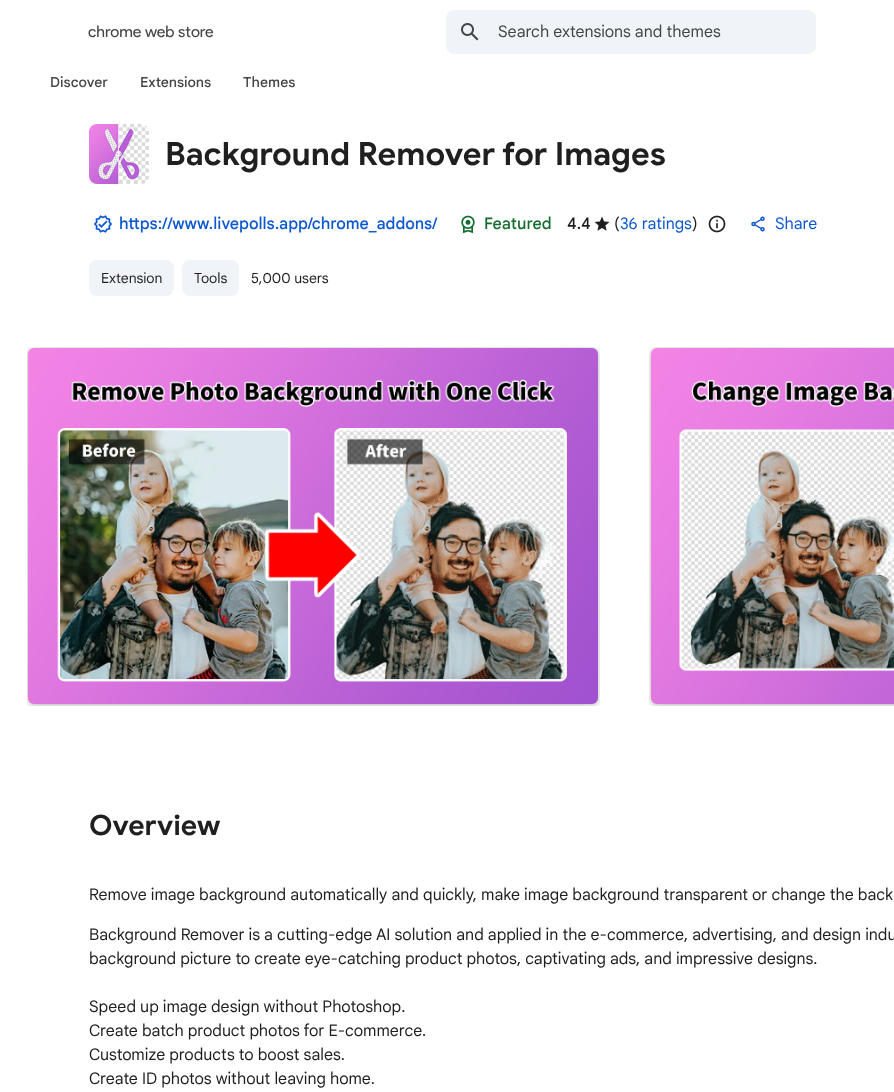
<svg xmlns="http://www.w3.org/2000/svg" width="894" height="1092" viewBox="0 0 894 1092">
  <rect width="100%" height="100%" fill="rgb(255,255,255)"/>
  <image x="61" y="21" width="6" height="1" href="pic1.png"/>
  <text x="88" y="37" font-family="Product Sans" font-size="16" fill="rgb(68,71,70)">chrome web store</text>
  <rect x="446" y="10" width="370" height="44" rx="8" fill="rgb(240,244,249)"/>
  <image x="461" y="23" width="18" height="18" href="pic2.png"/>
  <text x="498" y="37" font-family="Google Sans" font-size="16" fill="rgb(68,71,70)">Search extensions and themes</text>
  <g font-family="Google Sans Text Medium" font-size="14" font-weight="500" fill="rgb(68,71,70)">
    <text x="50" y="87">Discover</text>
    <text x="140" y="87">Extensions</text>
    <text x="243" y="87">Themes</text>
  </g>
  <image x="89" y="124" width="60" height="60" href="pic3.png"/>
  <text x="165" y="165" font-family="Google Sans" font-size="32" font-weight="bold" fill="rgb(31,31,31)">Background Remover for Images</text>
  <image x="94" y="215" width="18" height="18" href="pic4.png"/>
  <text x="119" y="229" font-family="Google Sans" font-size="16" font-weight="500" fill="rgb(11,87,208)">https://www.livepolls.app/chrome_addons/</text>
  <image x="461" y="215" width="14" height="19" href="pic5.png"/>
  <text x="484" y="229" font-family="Google Sans" font-size="16" font-weight="500" fill="rgb(20,108,46)">Featured</text>
  <text x="567" y="229" font-family="Google Sans" font-size="16" font-weight="500" fill="rgb(31,31,31)">4.4</text>
  <image x="594" y="216" width="16" height="15" href="pic6.png"/>
  <text x="614" y="229" font-family="Google Sans" font-size="16" fill="rgb(31,31,31)">(</text>
  <text x="620" y="229" font-family="Google Sans" font-size="16" fill="rgb(11,87,208)">36 ratings</text>
  <text x="692" y="229" font-family="Google Sans" font-size="16" fill="rgb(31,31,31)">)</text>
  <image x="708" y="215" width="18" height="18" href="pic7.png"/>
  <image x="751" y="216" width="14" height="16" href="pic8.png"/>
  <text x="775" y="229" font-family="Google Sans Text" font-size="16" fill="rgb(11,87,208)">Share</text>
  <rect x="89" y="260" width="85" height="36" rx="8" fill="rgb(240,244,249)"/>
  <text x="101" y="283" font-family="Google Sans" font-size="14" fill="rgb(31,31,31)">Extension</text>
  <rect x="182" y="260" width="57" height="36" rx="8" fill="rgb(240,244,249)"/>
  <g font-family="Google Sans" font-size="14" fill="rgb(31,31,31)">
    <text x="194" y="283">Tools</text>
    <text x="251" y="283">5,000 users</text>
  </g>
  <image x="27" y="347" width="573" height="359" href="pic9.png"/>
  <image x="649" y="347" width="245" height="359" href="pic10.png"/>
  <text x="89" y="835" font-family="Google Sans" font-size="28" font-weight="bold" fill="rgb(31,31,31)">Overview</text>
  <g font-family="Google Sans" font-size="16" fill="rgb(31,31,31)">
    <text x="89" y="900">Remove image background automatically and quickly, make image background transparent or change the back</text>
    <text>
      <tspan x="89" y="940">Background Remover is a cutting-edge AI solution and applied in the e-commerce, advertising, and design indu</tspan>
      <tspan x="89" y="964">background picture to create eye-catching product photos, captivating ads, and impressive designs.</tspan>
    </text>
    <text>
      <tspan x="89" y="1012">Speed up image design without Photoshop.</tspan>
      <tspan x="89" y="1036">Create batch product photos for E-commerce.</tspan>
      <tspan x="89" y="1060">Customize products to boost sales.</tspan>
      <tspan x="89" y="1084">Create ID photos without leaving home.</tspan>
    </text>
  </g>
</svg>
